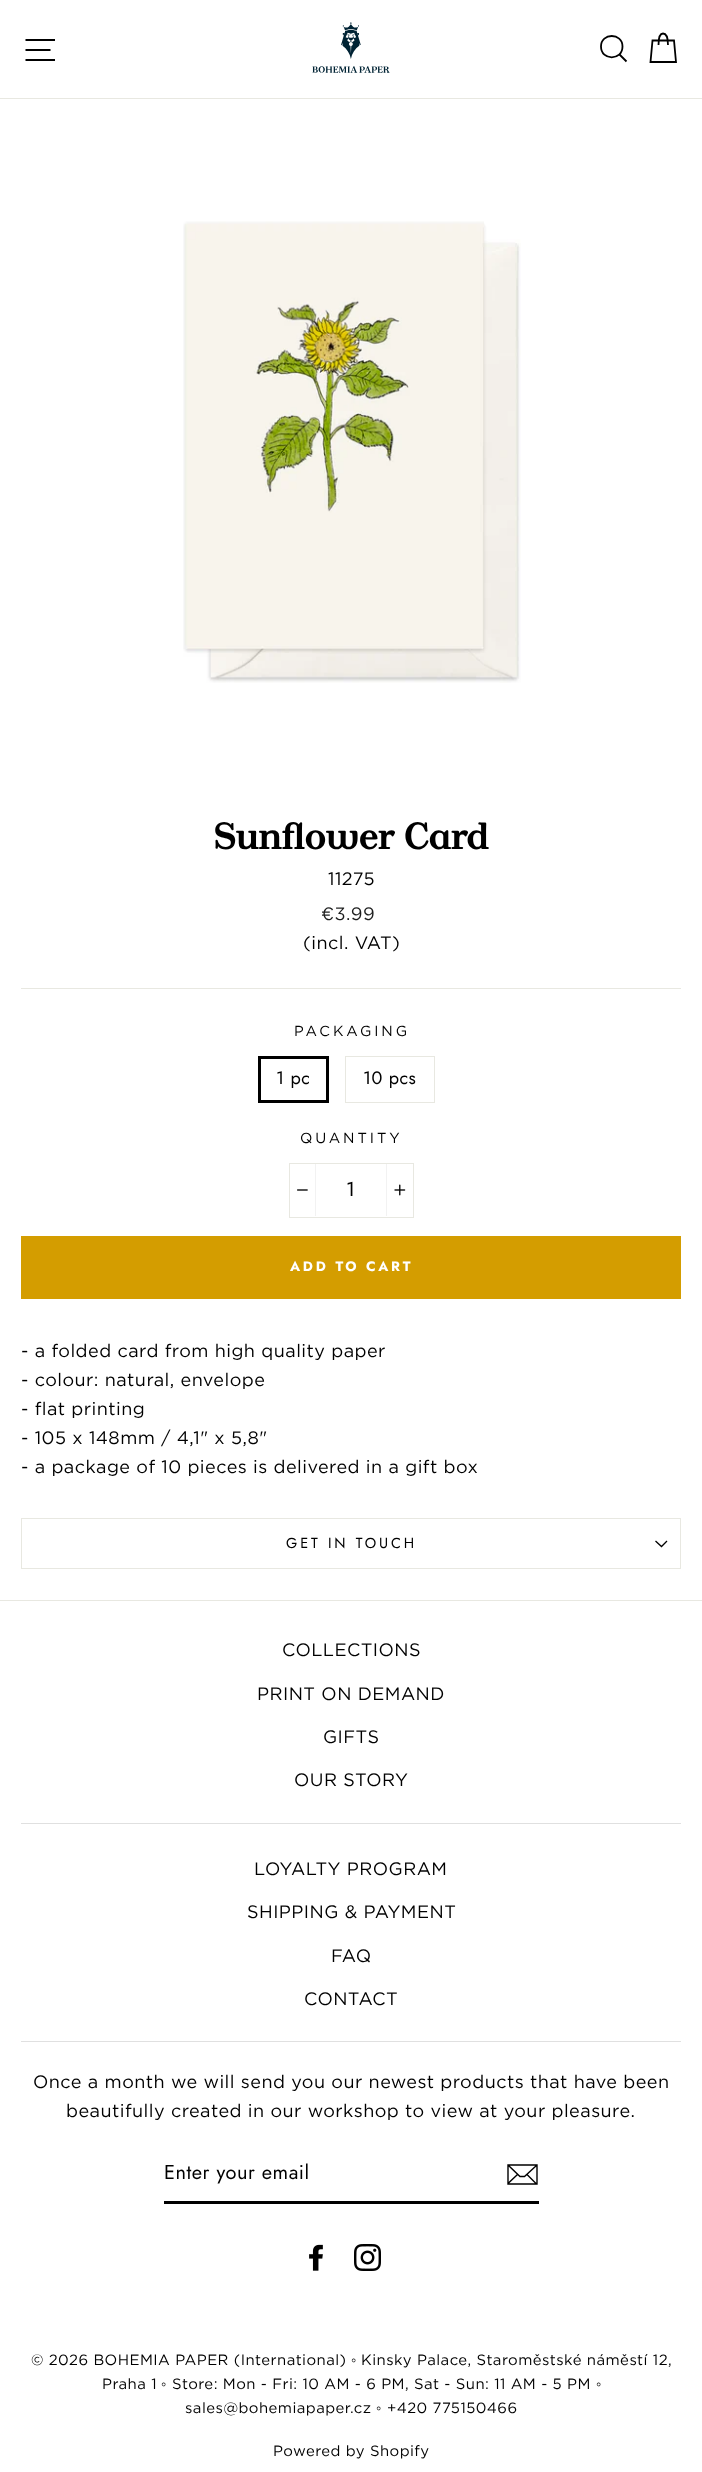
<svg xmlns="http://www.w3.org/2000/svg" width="702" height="2472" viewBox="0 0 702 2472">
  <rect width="100%" height="100%" fill="rgb(255,255,255)"/>
  <rect x="0" y="98" width="702" height="1" fill="rgb(232,232,225)"/>
  <path d="M25.5 40H55M25.5 50H50.5M25.5 60H55" fill="none" stroke="rgb(0,0,0)" stroke-width="1.8"/>
  <image x="312" y="22" width="78" height="51" href="pic1.png"/>
  <path d="M622.5 46.5C622.5 61 601 61 601 46.5C601 32.5 622.5 32.5 622.5 46.5ZM626.5 61.5L619.5 54.5" fill="none" stroke="rgb(0,0,0)" stroke-width="1.8"/>
  <path d="M658.5 45C658.5 36 660.5 33.5 663 33.5C665.5 33.5 668 36 668 45M652.5 40.5H674L676 62H650.5Z" fill="none" stroke="rgb(0,0,0)" stroke-width="1.8"/>
  <image x="183" y="221" width="338" height="462" href="pic2.png"/>
  <text x="213" y="849" word-spacing="1" font-family="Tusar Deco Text" font-size="36.5" font-weight="bold" fill="rgb(0,0,0)">Sunflower Card</text>
  <text x="328" y="885" font-family="Gotham" font-size="18.05" letter-spacing="0.45" fill="rgb(0,0,0)">11275</text>
  <text x="321" y="920" font-family="Gotham" font-size="18.05" letter-spacing="0.45" fill="rgb(28,29,29)">€3.99</text>
  <text x="303" y="949" font-family="Gotham" font-size="18.05" letter-spacing="0.45" fill="rgb(0,0,0)">(incl. VAT)</text>
  <rect x="21" y="988" width="660" height="1" fill="rgb(232,232,225)"/>
  <text x="294" y="1036" font-family="Gotham" font-size="14.5" letter-spacing="2.9" fill="rgb(0,0,0)">PACKAGING</text>
  <rect x="259.5" y="1057.5" width="68" height="44" fill="none" stroke="rgb(0,0,0)" stroke-width="3"/>
  <text x="276" y="1084" font-family="Jost" font-size="18.05" letter-spacing="0.45" fill="rgb(0,0,0)">1 pc</text>
  <rect x="345.5" y="1056.5" width="89" height="46" fill="none" stroke="rgb(232,232,225)"/>
  <text x="363" y="1084" font-family="Jost" font-size="18.05" letter-spacing="0.45" fill="rgb(0,0,0)">10 pcs</text>
  <text x="300" y="1143" font-family="Gotham" font-size="14.5" letter-spacing="2.9" fill="rgb(0,0,0)">QUANTITY</text>
  <rect x="289.5" y="1163.5" width="124" height="54" fill="none" stroke="rgb(232,232,225)"/>
  <rect x="315" y="1164" width="1" height="52" fill="rgb(242,242,242)"/>
  <image x="297" y="1189" width="11" height="2" href="pic3.png"/>
  <text x="346" y="1196" font-family="Jost" font-size="20" letter-spacing="0.5" fill="rgb(0,0,0)">1</text>
  <rect x="386" y="1164" width="1" height="52" fill="rgb(242,242,242)"/>
  <image x="394" y="1184" width="12" height="12" href="pic4.png"/>
  <rect x="21" y="1236" width="660" height="63" fill="rgb(212,157,0)"/>
  <text x="290" y="1271" font-family="Jost" font-size="13.75" font-weight="bold" letter-spacing="2.75" fill="rgb(255,255,255)">ADD TO CART</text>
  <g font-family="Gotham" font-size="18.05" letter-spacing="0.45" fill="rgb(0,0,0)">
    <text>
      <tspan x="21" y="1357">- a folded card from high quality paper</tspan>
      <tspan x="21" y="1386">- colour: natural, envelope</tspan>
      <tspan x="21" y="1415">- flat printing</tspan>
      <tspan x="21" y="1444">- 105 x 148mm / 4,1" x 5,8"</tspan>
      <tspan x="21" y="1473">- a package of 10 pieces is delivered in a gift box</tspan>
    </text>
  </g>
  <rect x="21" y="1568" width="660" height="1" fill="rgb(232,232,225)"/>
  <rect x="21" y="1518" width="660" height="1" fill="rgb(232,232,225)"/>
  <rect x="680" y="1518" width="1" height="50" fill="rgb(232,232,225)"/>
  <rect x="21" y="1518" width="1" height="50" fill="rgb(232,232,225)"/>
  <text x="286" y="1548" font-family="Jost" font-size="14.5" letter-spacing="2.9" fill="rgb(0,0,0)">GET IN TOUCH</text>
  <path d="M655.5 1541L661.5 1546.5L667 1541" fill="none" stroke="rgb(0,0,0)" stroke-width="1.3"/>
  <rect x="0" y="1600" width="702" height="1" fill="rgb(232,232,225)"/>
  <g font-family="Gotham" font-size="18.05" letter-spacing="0.45" fill="rgb(0,0,0)">
    <text x="282" y="1656">COLLECTIONS</text>
    <text x="257" y="1700">PRINT ON DEMAND</text>
    <text x="323" y="1743">GIFTS</text>
    <text x="294" y="1786">OUR STORY</text>
  </g>
  <rect x="21" y="1823" width="660" height="1" fill="rgb(224,224,224)"/>
  <g font-family="Gotham" font-size="18.05" letter-spacing="0.45" fill="rgb(0,0,0)">
    <text x="254" y="1875">LOYALTY PROGRAM</text>
    <text x="247" y="1918">SHIPPING &amp; PAYMENT</text>
    <text x="331" y="1962">FAQ</text>
    <text x="304" y="2005">CONTACT</text>
  </g>
  <rect x="21" y="2041" width="660" height="1" fill="rgb(224,224,224)"/>
  <g font-family="Gotham" font-size="18.05" letter-spacing="0.45" fill="rgb(0,0,0)">
    <text x="33" y="2088">Once a month we will send you our newest products that have been</text>
    <text x="66" y="2117">beautifully created in our workshop to view at your pleasure.</text>
  </g>
  <rect x="164" y="2201" width="375" height="3" fill="rgb(0,0,0)"/>
  <text x="164" y="2179" font-family="Jost" font-size="20" letter-spacing="0.5" fill="rgb(0,0,0)">Enter your email</text>
  <path d="M537 2184H508V2165H537ZM508 2165L520 2176.5H524.5L537 2165M517.5 2174.5L508 2183.5M536.5 2184L527 2174.5" fill="none" stroke="rgb(0,0,0)" stroke-width="1.4"/>
  <image x="309" y="2244" width="14" height="27" href="pic5.png"/>
  <image x="354" y="2244" width="27" height="27" href="pic6.png"/>
  <text x="31" y="2365" font-family="Gotham" font-size="14.9" letter-spacing="0.45" fill="rgb(0,0,0)">© 2026 BOHEMIA PAPER (International)</text>
  <text x="351" y="2365" font-family="Liberation Sans" font-size="14.9" letter-spacing="0.45" fill="rgb(0,0,0)">◦</text>
  <g font-family="Gotham" font-size="14.9" letter-spacing="0.45" fill="rgb(0,0,0)">
    <text x="361" y="2365">Kinsky Palace, Staroměstské náměstí 12,</text>
    <text x="102" y="2389">Praha 1</text>
  </g>
  <text x="161" y="2389" font-family="Liberation Sans" font-size="14.9" letter-spacing="0.45" fill="rgb(0,0,0)">◦</text>
  <text x="172" y="2389" font-family="Gotham" font-size="14.9" letter-spacing="0.45" fill="rgb(0,0,0)">Store: Mon - Fri: 10 AM - 6 PM, Sat - Sun: 11 AM - 5 PM</text>
  <text x="596" y="2389" font-family="Liberation Sans" font-size="14.9" letter-spacing="0.45" fill="rgb(0,0,0)">◦</text>
  <text x="185" y="2413" font-family="Gotham" font-size="14.9" letter-spacing="0.45" fill="rgb(0,0,0)">sales@bohemiapaper.cz</text>
  <text x="376" y="2413" font-family="Liberation Sans" font-size="14.9" letter-spacing="0.45" fill="rgb(0,0,0)">◦</text>
  <g font-family="Gotham" font-size="14.9" letter-spacing="0.45" fill="rgb(0,0,0)">
    <text x="387" y="2413">+420 775150466</text>
    <text x="273" y="2456">Powered by Shopify</text>
  </g>
</svg>
